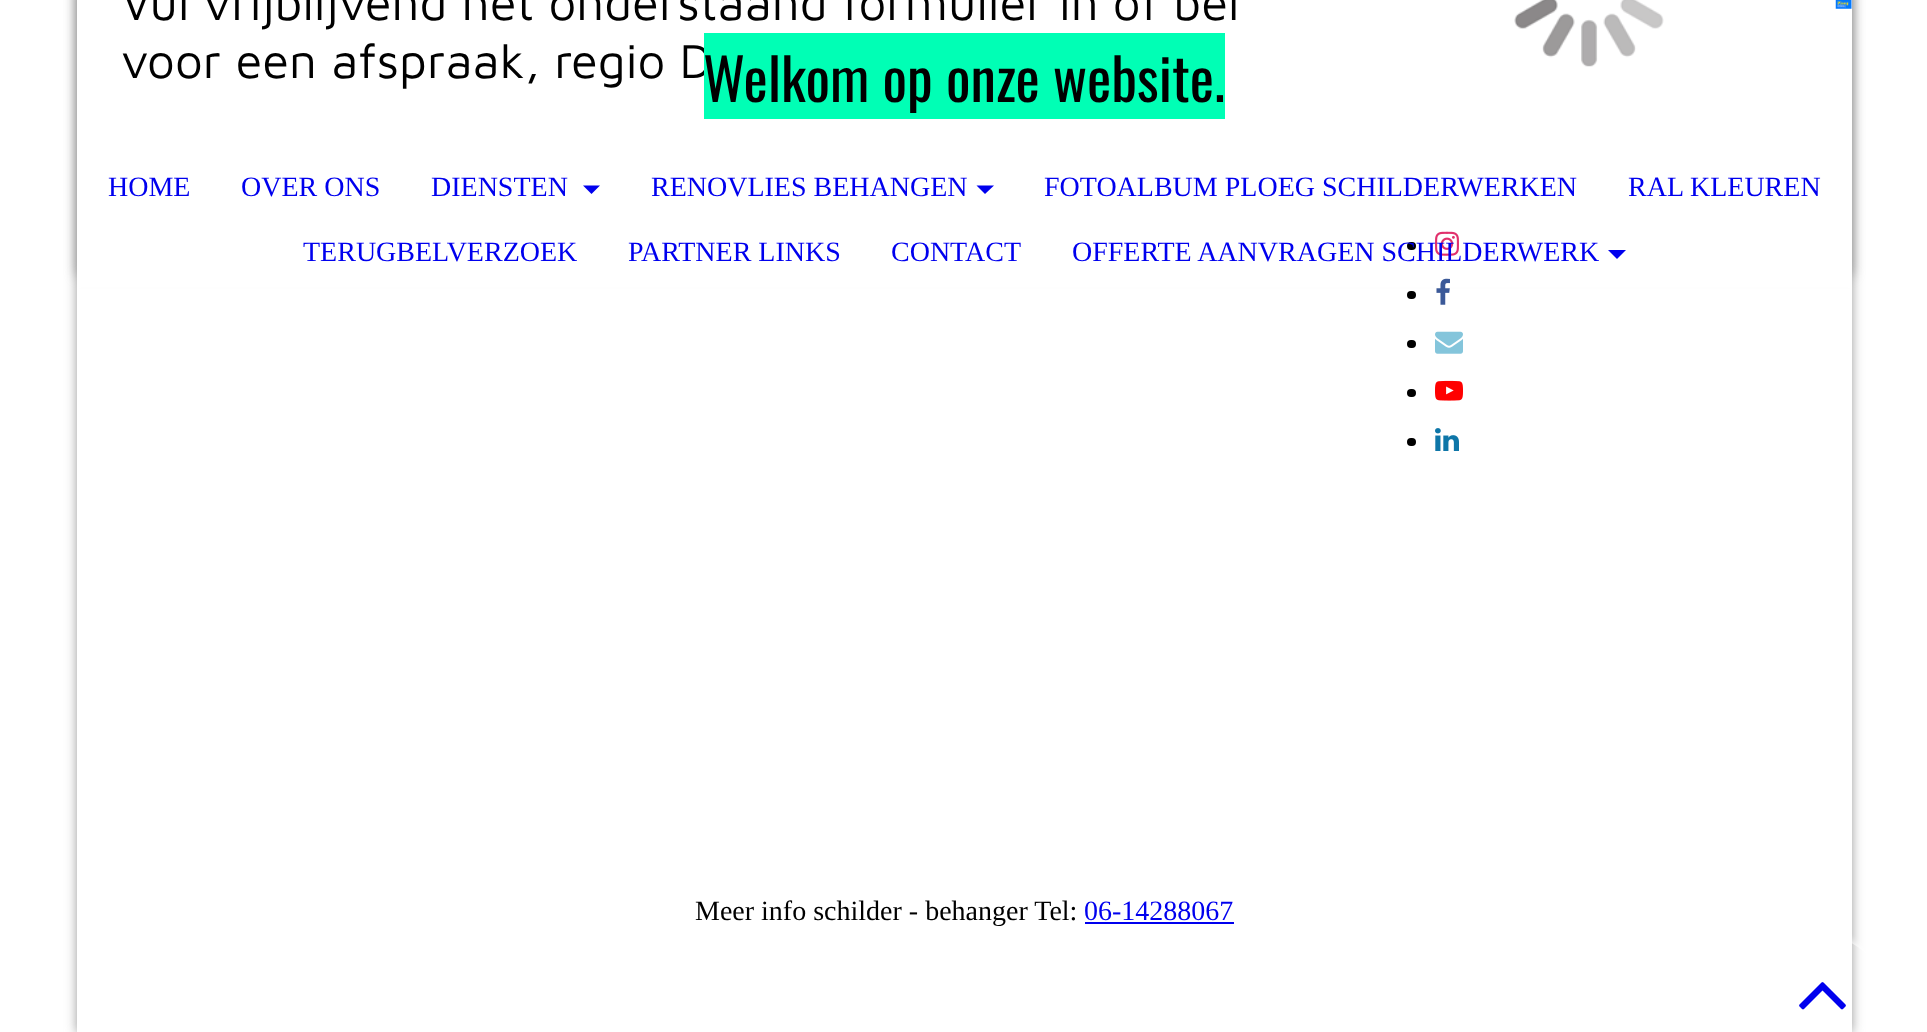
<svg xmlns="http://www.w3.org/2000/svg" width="1927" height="1032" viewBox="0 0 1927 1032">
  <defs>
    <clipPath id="clip1"><path d="M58 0H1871V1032H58ZM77-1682H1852V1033H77Z" clip-rule="evenodd"/></clipPath>
    <clipPath id="clip2"><path d="M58 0H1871V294H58ZM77 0H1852V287H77Z" clip-rule="evenodd"/></clipPath>
    <clipPath id="clip3"><path d="M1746 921H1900V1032H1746ZM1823 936C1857 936 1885 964 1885 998V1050H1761V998C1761 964 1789 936 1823 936Z" clip-rule="evenodd"/></clipPath>
  </defs>
  <rect width="100%" height="100%" fill="rgb(255,255,255)"/>
  <g clip-path="url(#clip1)">
    <rect x="77" y="-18" width="1775" height="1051" fill="rgb(153,153,153)" filter="blur(6px)"/>
  </g>
  <g font-family="Maven Pro" font-size="49" fill="rgb(0,0,0)">
    <text>
      <tspan x="121" y="20">Vul vrijblijvend het onderstaand formulier in of bel</tspan>
      <tspan x="121" y="78">voor een afspraak, regio D</tspan>
    </text>
  </g>
  <image x="1514" y="0" width="150" height="67" href="pic1.png"/>
  <rect x="1407" y="242" width="9" height="8" rx="4" fill="rgb(0,0,0)"/>
  <image x="1435" y="231" width="24" height="25" href="pic2.png"/>
  <rect x="1407" y="291" width="9" height="8" rx="4" fill="rgb(0,0,0)"/>
  <image x="1436" y="278" width="14" height="27" href="pic3.png"/>
  <rect x="1407" y="340" width="9" height="8" rx="4" fill="rgb(0,0,0)"/>
  <image x="1435" y="331" width="28" height="23" href="pic4.png"/>
  <rect x="1407" y="389" width="9" height="8" rx="4" fill="rgb(0,0,0)"/>
  <image x="1435" y="380" width="28" height="21" href="pic5.png"/>
  <rect x="1407" y="438" width="9" height="8" rx="4" fill="rgb(0,0,0)"/>
  <image x="1435" y="428" width="24" height="23" href="pic6.png"/>
  <g clip-path="url(#clip2)">
    <rect x="77" y="-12" width="1775" height="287" fill="rgb(153,153,153)" filter="blur(6px)"/>
  </g>
  <image x="1835" y="0" width="17" height="9" href="pic7.png"/>
  <rect x="704" y="33" width="521" height="86" fill="rgb(0,255,181)"/>
  <text x="703" y="102" font-family="Oswald" font-size="57.75" fill="rgb(0,0,0)">Welkom op onze website.</text>
  <g font-family="Liberation Serif" font-size="28" fill="rgb(0,0,238)">
    <text x="108" y="196">HOME</text>
    <text x="241" y="196">OVER ONS</text>
    <text x="431" y="196">DIENSTEN</text>
  </g>
  <path d="M583 185.5H600L591.5 194Z" fill="rgb(0,0,238)"/>
  <text x="651" y="196" font-family="Liberation Serif" font-size="28" fill="rgb(0,0,238)">RENOVLIES BEHANGEN</text>
  <path d="M976.5 185.5H994L985 194Z" fill="rgb(0,0,238)"/>
  <g font-family="Liberation Serif" font-size="28" fill="rgb(0,0,238)">
    <text x="1044" y="196">FOTOALBUM PLOEG SCHILDERWERKEN</text>
    <text x="1628" y="196">RAL KLEUREN</text>
    <text x="303" y="261">TERUGBELVERZOEK</text>
    <text x="628" y="261">PARTNER LINKS</text>
    <text x="891" y="261">CONTACT</text>
    <text x="1072" y="261">OFFERTE AANVRAGEN SCHILDERWERK</text>
  </g>
  <path d="M1608 250H1626L1617 259Z" fill="rgb(0,0,238)"/>
  <text x="695" y="920" font-family="Liberation Serif" font-size="28" fill="rgb(0,0,0)">Meer info schilder - behanger Tel:</text>
  <text x="1084" y="920" font-family="Liberation Serif" font-size="28" fill="rgb(0,0,238)">06-14288067</text>
  <rect x="1085" y="922" width="149" height="2" fill="rgb(0,0,238)"/>
  <g clip-path="url(#clip3)">
    <rect x="1761" y="936" width="124" height="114" rx="62" fill="rgb(255,255,255)" filter="blur(4.5px)"/>
  </g>
  <image x="1799" y="982" width="47" height="28" href="pic8.png"/>
</svg>
